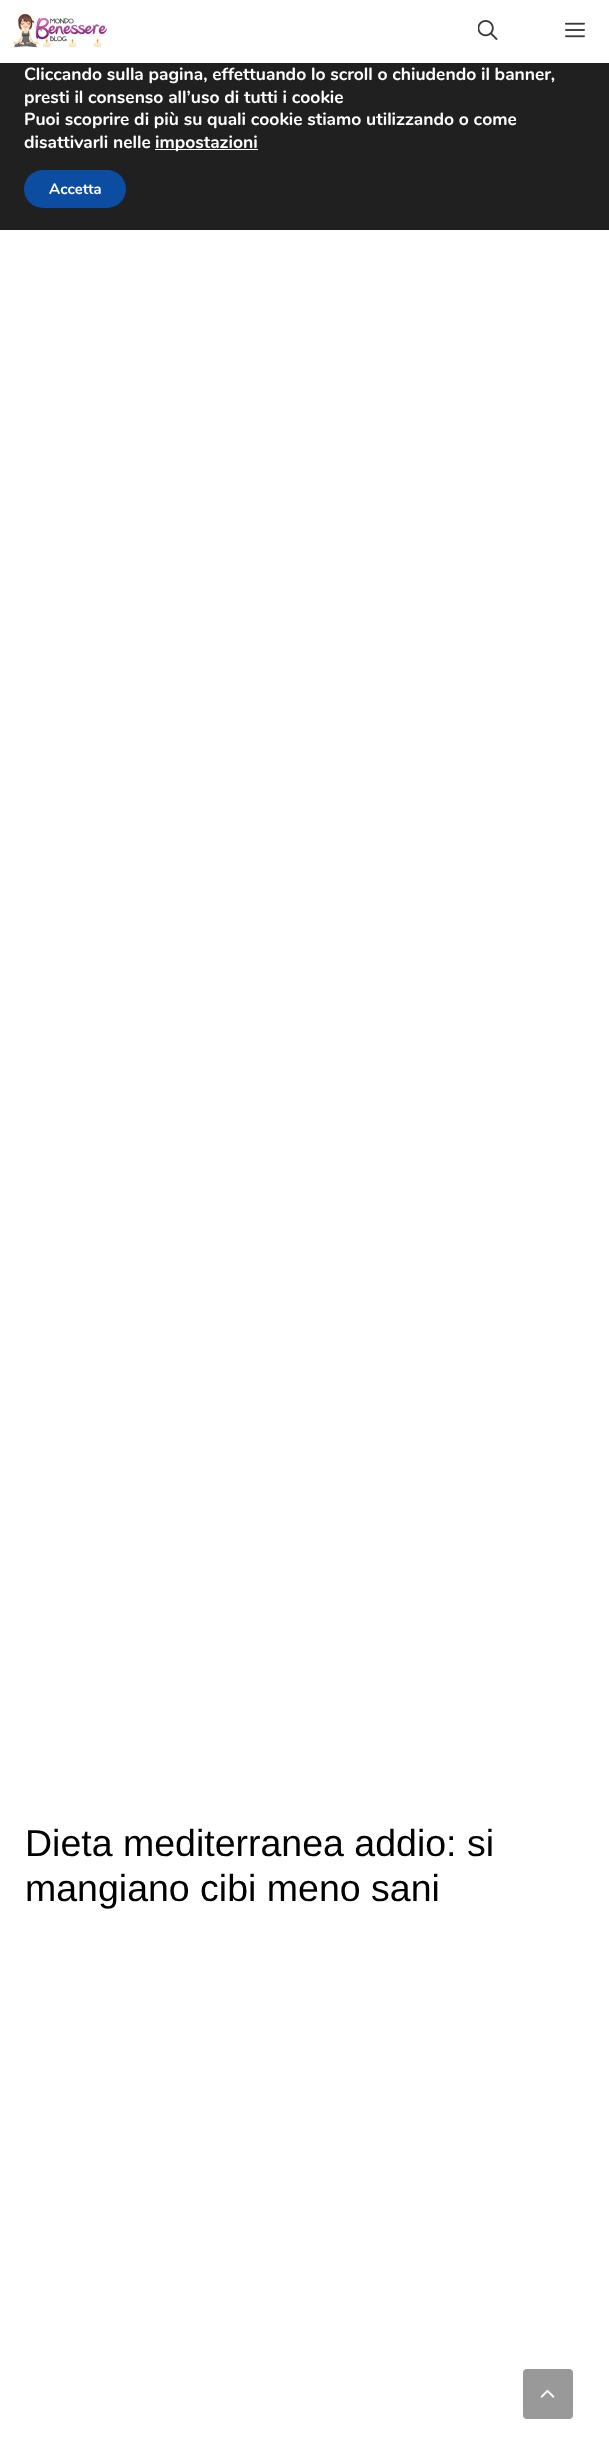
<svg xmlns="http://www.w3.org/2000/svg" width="609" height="2456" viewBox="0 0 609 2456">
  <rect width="100%" height="100%" fill="rgb(255,255,255)"/>
  <rect x="0" y="63" width="609" height="167" fill="rgb(32,32,32)"/>
  <rect x="3" y="5" width="605" height="58" fill="rgba(0,0,0,0.2)" filter="blur(1px)"/>
  <rect x="1" y="3" width="608" height="60" fill="rgb(255,255,255)"/>
  <image x="12" y="13" width="96" height="36" href="pic1.png"/>
  <image x="478" y="20" width="20" height="20" href="pic2.png"/>
  <image x="565" y="22" width="20" height="16" href="pic3.png"/>
  <g font-family="Nunito" font-size="17.5" font-weight="bold" fill="rgb(255,255,255)">
    <text>
      <tspan x="24" y="80">Cliccando sulla pagina, effettuando lo scroll o chiudendo il banner,</tspan>
      <tspan x="24" y="103">presti il consenso all’uso di tutti i cookie</tspan>
      <tspan x="24" y="125">Puoi scoprire di più su quali cookie stiamo utilizzando o come</tspan>
      <tspan x="24" y="148">disattivarli nelle</tspan>
    </text>
  </g>
  <rect x="155" y="149" width="103" height="1" fill="rgb(255,255,255)"/>
  <text x="155" y="148" font-family="Nunito" font-size="17.5" font-weight="bold" fill="rgb(255,255,255)">impostazioni</text>
  <rect x="24" y="170" width="102" height="38" rx="19" fill="rgb(12,77,162)"/>
  <text x="49" y="194" font-family="Nunito" font-size="15" font-weight="bold" fill="rgb(255,255,255)">Accetta</text>
  <g font-family="Liberation Sans" font-size="37.5" fill="rgb(0,0,0)">
    <text>
      <tspan x="25" y="1856">Dieta mediterranea addio: si</tspan>
      <tspan x="25" y="1901">mangiano cibi meno sani</tspan>
    </text>
  </g>
  <rect x="523" y="2369" width="50" height="50" rx="4" fill="rgb(153,153,153)"/>
  <image x="540" y="2389" width="15" height="9" href="pic4.png"/>
</svg>
